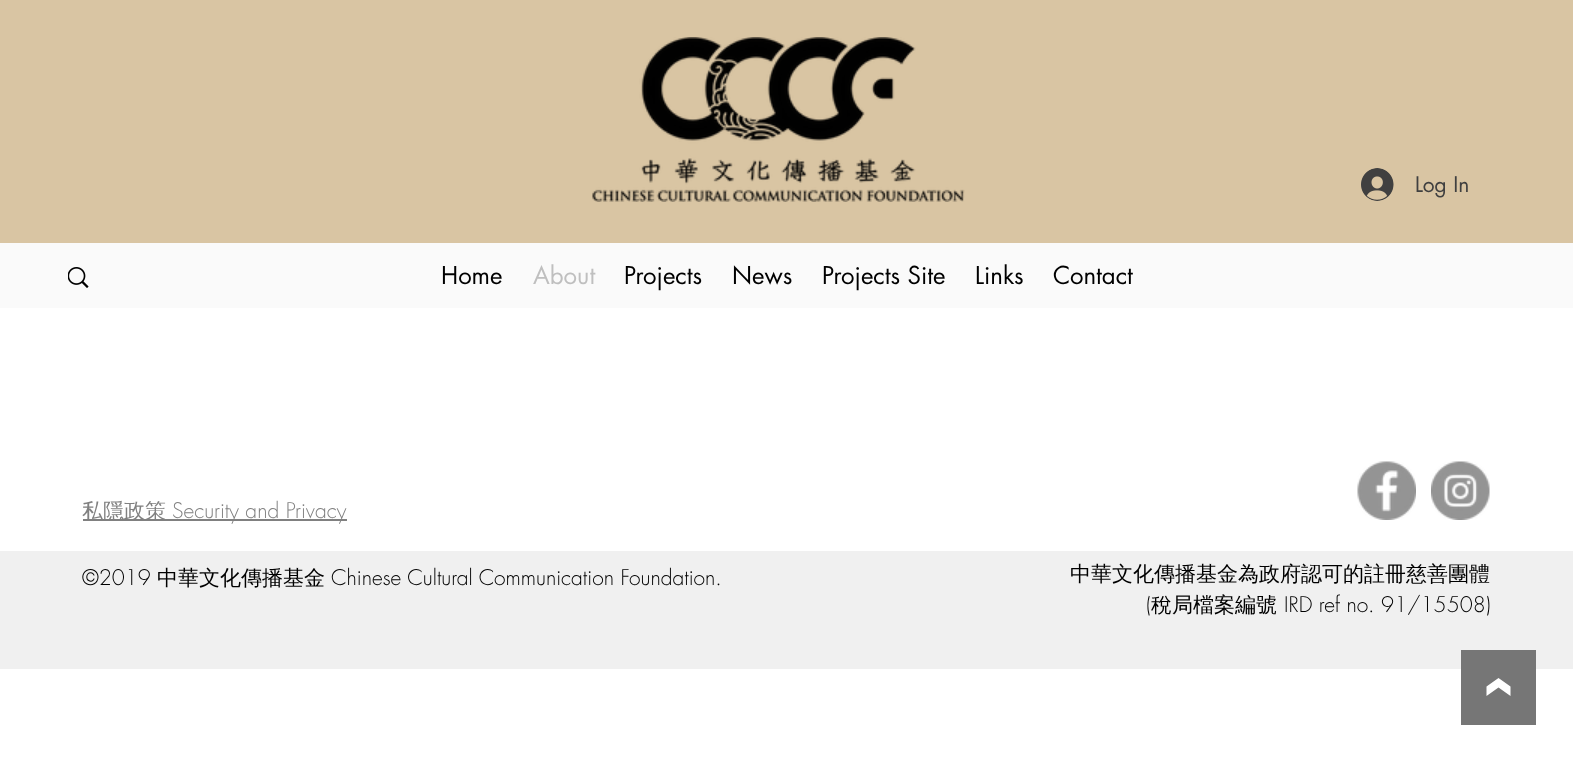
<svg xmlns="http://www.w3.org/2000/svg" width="1573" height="761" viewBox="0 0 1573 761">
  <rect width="100%" height="100%" fill="rgb(255,255,255)"/>
  <rect x="0" y="0" width="1573" height="243" fill="rgb(217,197,163)"/>
  <image x="592" y="37" width="373" height="165" href="pic1.png"/>
  <image x="1361" y="168" width="33" height="33" href="pic2.png"/>
  <text x="1415" y="192" font-family="futura" font-size="21" fill="rgb(64,64,64)">Log In</text>
  <rect x="0" y="243" width="1573" height="65" fill="rgb(250,250,250)"/>
  <image x="68" y="267" width="21" height="21" href="pic3.png"/>
  <text x="441" y="284" font-family="futura" font-size="24" fill="rgb(0,0,0)">Home</text>
  <text x="533" y="284" font-family="futura" font-size="24" fill="rgb(191,191,191)">About</text>
  <g font-family="futura" font-size="24" fill="rgb(0,0,0)">
    <text x="624" y="284">Projects</text>
    <text x="732" y="284">News</text>
    <text x="822" y="284">Projects Site</text>
    <text x="975" y="284">Links</text>
    <text x="1053" y="284">Contact</text>
  </g>
  <rect x="83" y="519" width="264" height="2" fill="rgb(128,128,128)"/>
  <text x="82" y="518" font-family="WenQuanYi Zen Hei" font-size="21" font-weight="500" fill="rgb(128,128,128)">私隱政策</text>
  <text x="172" y="518" font-family="futura" font-size="21" font-weight="300" fill="rgb(128,128,128)">Security and Privacy</text>
  <image x="1357" y="461" width="59" height="59" href="pic4.png"/>
  <image x="1431" y="461" width="59" height="59" href="pic5.png"/>
  <rect x="0" y="551" width="1573" height="118" fill="rgb(240,240,240)"/>
  <text x="82" y="585" font-family="futura" font-size="21" font-weight="300" fill="rgb(0,0,0)">©2019</text>
  <text x="157" y="585" font-family="WenQuanYi Zen Hei" font-size="21" font-weight="500" fill="rgb(0,0,0)">中華文化傳播基金</text>
  <text x="331" y="585" font-family="futura" font-size="21" font-weight="300" fill="rgb(0,0,0)">Chinese Cultural Communication Foundation.</text>
  <text x="1070" y="581" font-family="WenQuanYi Zen Hei" font-size="21" font-weight="500" fill="rgb(0,0,0)">中華文化傳播基金為政府認可的註冊慈善團體</text>
  <text x="1146" y="612" font-family="futura" font-size="21" font-weight="300" fill="rgb(0,0,0)">(</text>
  <text x="1151" y="612" font-family="WenQuanYi Zen Hei" font-size="21" font-weight="500" fill="rgb(0,0,0)">稅局檔案編號</text>
  <text x="1284" y="612" font-family="futura" font-size="21" font-weight="300" fill="rgb(0,0,0)">IRD ref no. 91/15508)</text>
  <rect x="1461" y="650" width="75" height="75" fill="rgb(118,118,118)"/>
  <path d="M1510.5 696L1498.5 687.5L1486.5 696V686.5L1498.5 678L1510.5 686.5Z" fill="rgb(255,255,255)"/>
</svg>
